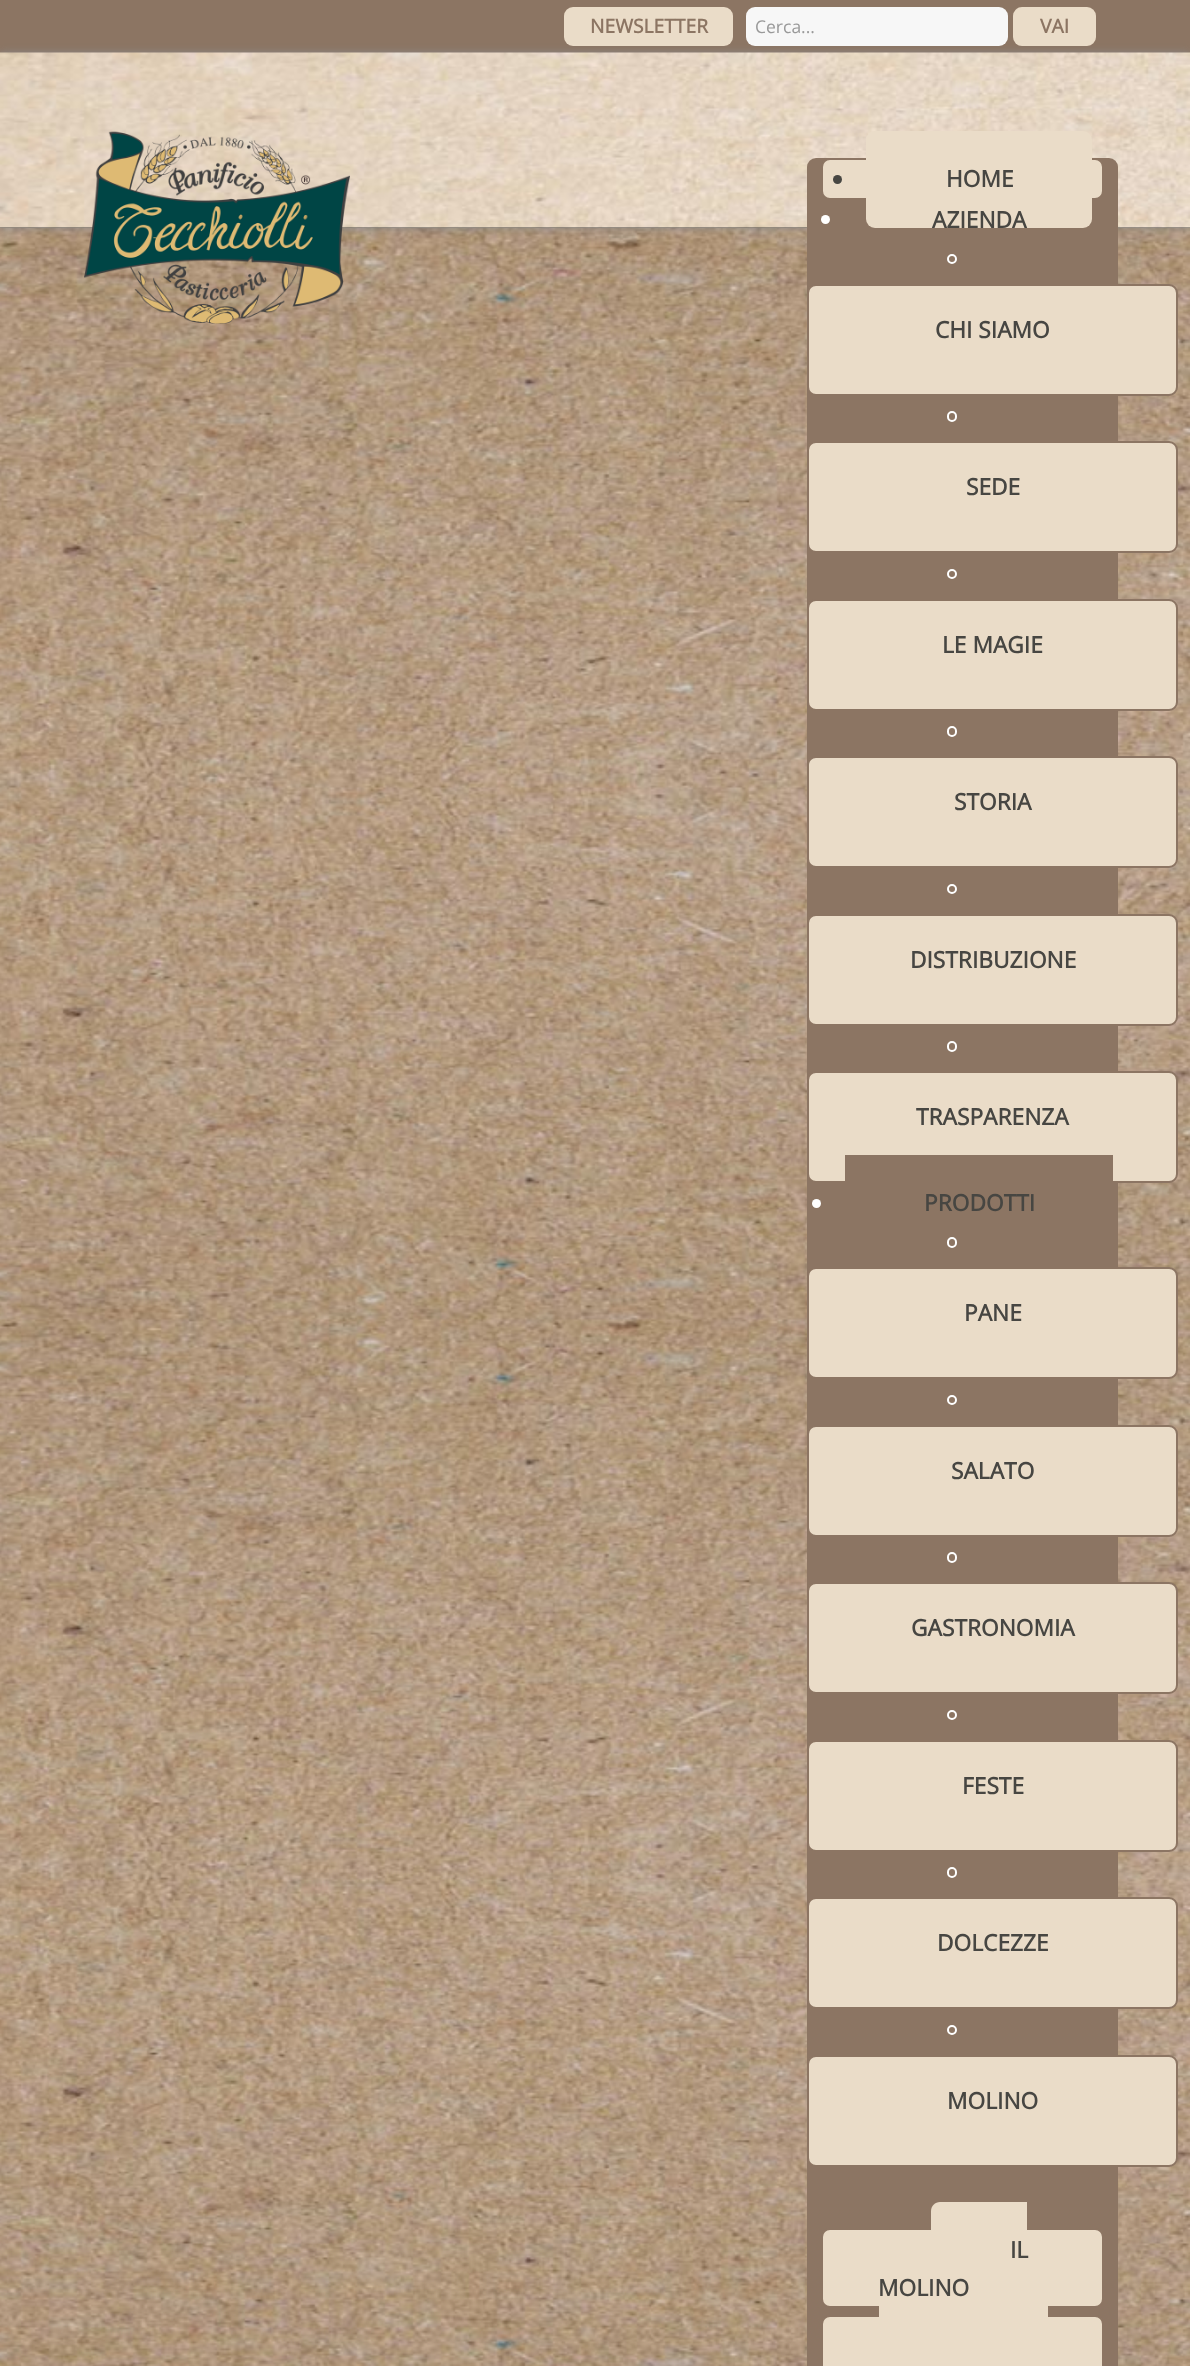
<svg xmlns="http://www.w3.org/2000/svg" width="1190" height="2366" viewBox="0 0 1190 2366">
  <rect width="100%" height="100%" fill="rgb(255,255,255)"/>
  <rect x="0" y="0" width="1190" height="53" fill="rgb(140,117,99)"/>
  <image x="0" y="227" width="1190" height="2139" href="pic3.png"/>
  <rect x="0" y="53" width="1190" height="175" fill="rgb(137,137,137)" filter="blur(4.5px)"/>
  <rect x="564" y="7" width="169" height="39" rx="9" fill="rgb(234,220,200)"/>
  <text x="590" y="33" font-family="Open Sans" font-size="19.25" font-weight="bold" fill="rgb(140,117,99)">NEWSLETTER</text>
  <rect x="746" y="7" width="262" height="39" rx="9" fill="rgb(247,247,247)"/>
  <text x="755" y="33" font-family="Open Sans" font-size="17.5" fill="rgb(153,153,153)">Cerca...</text>
  <rect x="1013" y="7" width="83" height="39" rx="9" fill="rgb(234,220,200)"/>
  <text x="1040" y="33" font-family="Open Sans" font-size="19.25" font-weight="bold" fill="rgb(140,117,99)">VAI</text>
  <rect x="0" y="227" width="1190" height="1" fill="rgba(0,0,0,0.6)"/>
  <image x="0" y="52" width="1190" height="176" href="pic1.png"/>
  <image x="84" y="131" width="266" height="193" href="pic2.png"/>
  <rect x="807" y="158" width="311" height="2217" rx="9" fill="rgb(140,117,99)"/>
  <rect x="822" y="159" width="281" height="40" rx="8" fill="rgb(234,220,200)" stroke="rgb(140,117,99)" stroke-width="2"/>
  <circle cx="837.5" cy="179.5" r="4.5" fill="rgb(71,70,66)"/>
  <rect x="866" y="131" width="226" height="97" rx="9" fill="rgb(234,220,200)"/>
  <text x="946" y="187" font-family="Open Sans" font-size="22.75" font-weight="bold" fill="rgb(71,70,66)">HOME</text>
  <circle cx="825.5" cy="219.5" r="4.5" fill="rgb(255,255,255)"/>
  <text x="932" y="228" font-family="Open Sans" font-size="22.75" font-weight="bold" fill="rgb(71,70,66)">AZIENDA</text>
  <circle cx="952" cy="259" r="4" fill="none" stroke="rgb(255,255,255)" stroke-width="2"/>
  <rect x="808" y="285" width="369" height="110" rx="8" fill="rgb(234,220,200)" stroke="rgb(140,117,99)" stroke-width="2"/>
  <text x="935" y="338" font-family="Open Sans" font-size="22.75" font-weight="bold" fill="rgb(71,70,66)">CHI SIAMO</text>
  <rect x="948" y="412" width="8" height="9" rx="4" fill="none" stroke="rgb(255,255,255)" stroke-width="2"/>
  <rect x="808" y="442" width="369" height="110" rx="8" fill="rgb(234,220,200)" stroke="rgb(140,117,99)" stroke-width="2"/>
  <text x="966" y="495" font-family="Open Sans" font-size="22.75" font-weight="bold" fill="rgb(71,70,66)">SEDE</text>
  <circle cx="952" cy="574" r="4" fill="none" stroke="rgb(255,255,255)" stroke-width="2"/>
  <rect x="808" y="600" width="369" height="110" rx="8" fill="rgb(234,220,200)" stroke="rgb(140,117,99)" stroke-width="2"/>
  <text x="942" y="653" font-family="Open Sans" font-size="22.75" font-weight="bold" fill="rgb(71,70,66)">LE MAGIE</text>
  <rect x="948" y="727" width="8" height="9" rx="4" fill="none" stroke="rgb(255,255,255)" stroke-width="2"/>
  <rect x="808" y="757" width="369" height="110" rx="8" fill="rgb(234,220,200)" stroke="rgb(140,117,99)" stroke-width="2"/>
  <text x="954" y="810" font-family="Open Sans" font-size="22.75" font-weight="bold" fill="rgb(71,70,66)">STORIA</text>
  <circle cx="952" cy="889" r="4" fill="none" stroke="rgb(255,255,255)" stroke-width="2"/>
  <rect x="808" y="915" width="369" height="110" rx="8" fill="rgb(234,220,200)" stroke="rgb(140,117,99)" stroke-width="2"/>
  <text x="910" y="968" font-family="Open Sans" font-size="22.75" font-weight="bold" fill="rgb(71,70,66)">DISTRIBUZIONE</text>
  <rect x="948" y="1042" width="8" height="9" rx="4" fill="none" stroke="rgb(255,255,255)" stroke-width="2"/>
  <rect x="808" y="1072" width="369" height="110" rx="8" fill="rgb(234,220,200)" stroke="rgb(140,117,99)" stroke-width="2"/>
  <text x="916" y="1125" font-family="Open Sans" font-size="22.75" font-weight="bold" fill="rgb(71,70,66)">TRASPARENZA</text>
  <circle cx="816.5" cy="1203.5" r="4.5" fill="rgb(255,255,255)"/>
  <text x="924" y="1211" font-family="Open Sans" font-size="22.75" font-weight="bold" fill="rgb(71,70,66)">PRODOTTI</text>
  <rect x="845" y="1155" width="268" height="26" fill="rgb(140,117,99)"/>
  <rect x="948" y="1238" width="8" height="9" rx="4" fill="none" stroke="rgb(255,255,255)" stroke-width="2"/>
  <rect x="808" y="1268" width="369" height="110" rx="8" fill="rgb(234,220,200)" stroke="rgb(140,117,99)" stroke-width="2"/>
  <text x="964" y="1321" font-family="Open Sans" font-size="22.75" font-weight="bold" fill="rgb(71,70,66)">PANE</text>
  <circle cx="952" cy="1400" r="4" fill="none" stroke="rgb(255,255,255)" stroke-width="2"/>
  <rect x="808" y="1426" width="369" height="110" rx="8" fill="rgb(234,220,200)" stroke="rgb(140,117,99)" stroke-width="2"/>
  <text x="951" y="1479" font-family="Open Sans" font-size="22.75" font-weight="bold" fill="rgb(71,70,66)">SALATO</text>
  <rect x="948" y="1553" width="8" height="9" rx="4" fill="none" stroke="rgb(255,255,255)" stroke-width="2"/>
  <rect x="808" y="1583" width="369" height="110" rx="8" fill="rgb(234,220,200)" stroke="rgb(140,117,99)" stroke-width="2"/>
  <text x="911" y="1636" font-family="Open Sans" font-size="22.75" font-weight="bold" fill="rgb(71,70,66)">GASTRONOMIA</text>
  <circle cx="952" cy="1715" r="4" fill="none" stroke="rgb(255,255,255)" stroke-width="2"/>
  <rect x="808" y="1741" width="369" height="110" rx="8" fill="rgb(234,220,200)" stroke="rgb(140,117,99)" stroke-width="2"/>
  <text x="962" y="1794" font-family="Open Sans" font-size="22.75" font-weight="bold" fill="rgb(71,70,66)">FESTE</text>
  <rect x="948" y="1868" width="8" height="9" rx="4" fill="none" stroke="rgb(255,255,255)" stroke-width="2"/>
  <rect x="808" y="1898" width="369" height="110" rx="8" fill="rgb(234,220,200)" stroke="rgb(140,117,99)" stroke-width="2"/>
  <text x="937" y="1951" font-family="Open Sans" font-size="22.75" font-weight="bold" fill="rgb(71,70,66)">DOLCEZZE</text>
  <circle cx="952" cy="2030" r="4" fill="none" stroke="rgb(255,255,255)" stroke-width="2"/>
  <rect x="808" y="2056" width="369" height="110" rx="8" fill="rgb(234,220,200)" stroke="rgb(140,117,99)" stroke-width="2"/>
  <text x="947" y="2109" font-family="Open Sans" font-size="22.75" font-weight="bold" fill="rgb(71,70,66)">MOLINO</text>
  <rect x="822" y="2229" width="281" height="78" rx="8" fill="rgb(234,220,200)" stroke="rgb(140,117,99)" stroke-width="2"/>
  <path d="M940 2202H1027V2298H940C935 2298 931 2294 931 2289V2211C931 2206 935 2202 940 2202Z" fill="rgb(234,220,200)"/>
  <rect x="822" y="2316" width="281" height="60" rx="8" fill="rgb(234,220,200)" stroke="rgb(140,117,99)" stroke-width="2"/>
  <path d="M879 2240H1039C1044 2240 1048 2244 1048 2249V2327C1048 2332 1044 2336 1039 2336H879Z" fill="rgb(234,220,200)"/>
  <g font-family="Open Sans" font-size="22.75" font-weight="bold" fill="rgb(71,70,66)">
    <text x="1010" y="2258">IL</text>
    <text x="878" y="2296">MOLINO</text>
  </g>
</svg>
